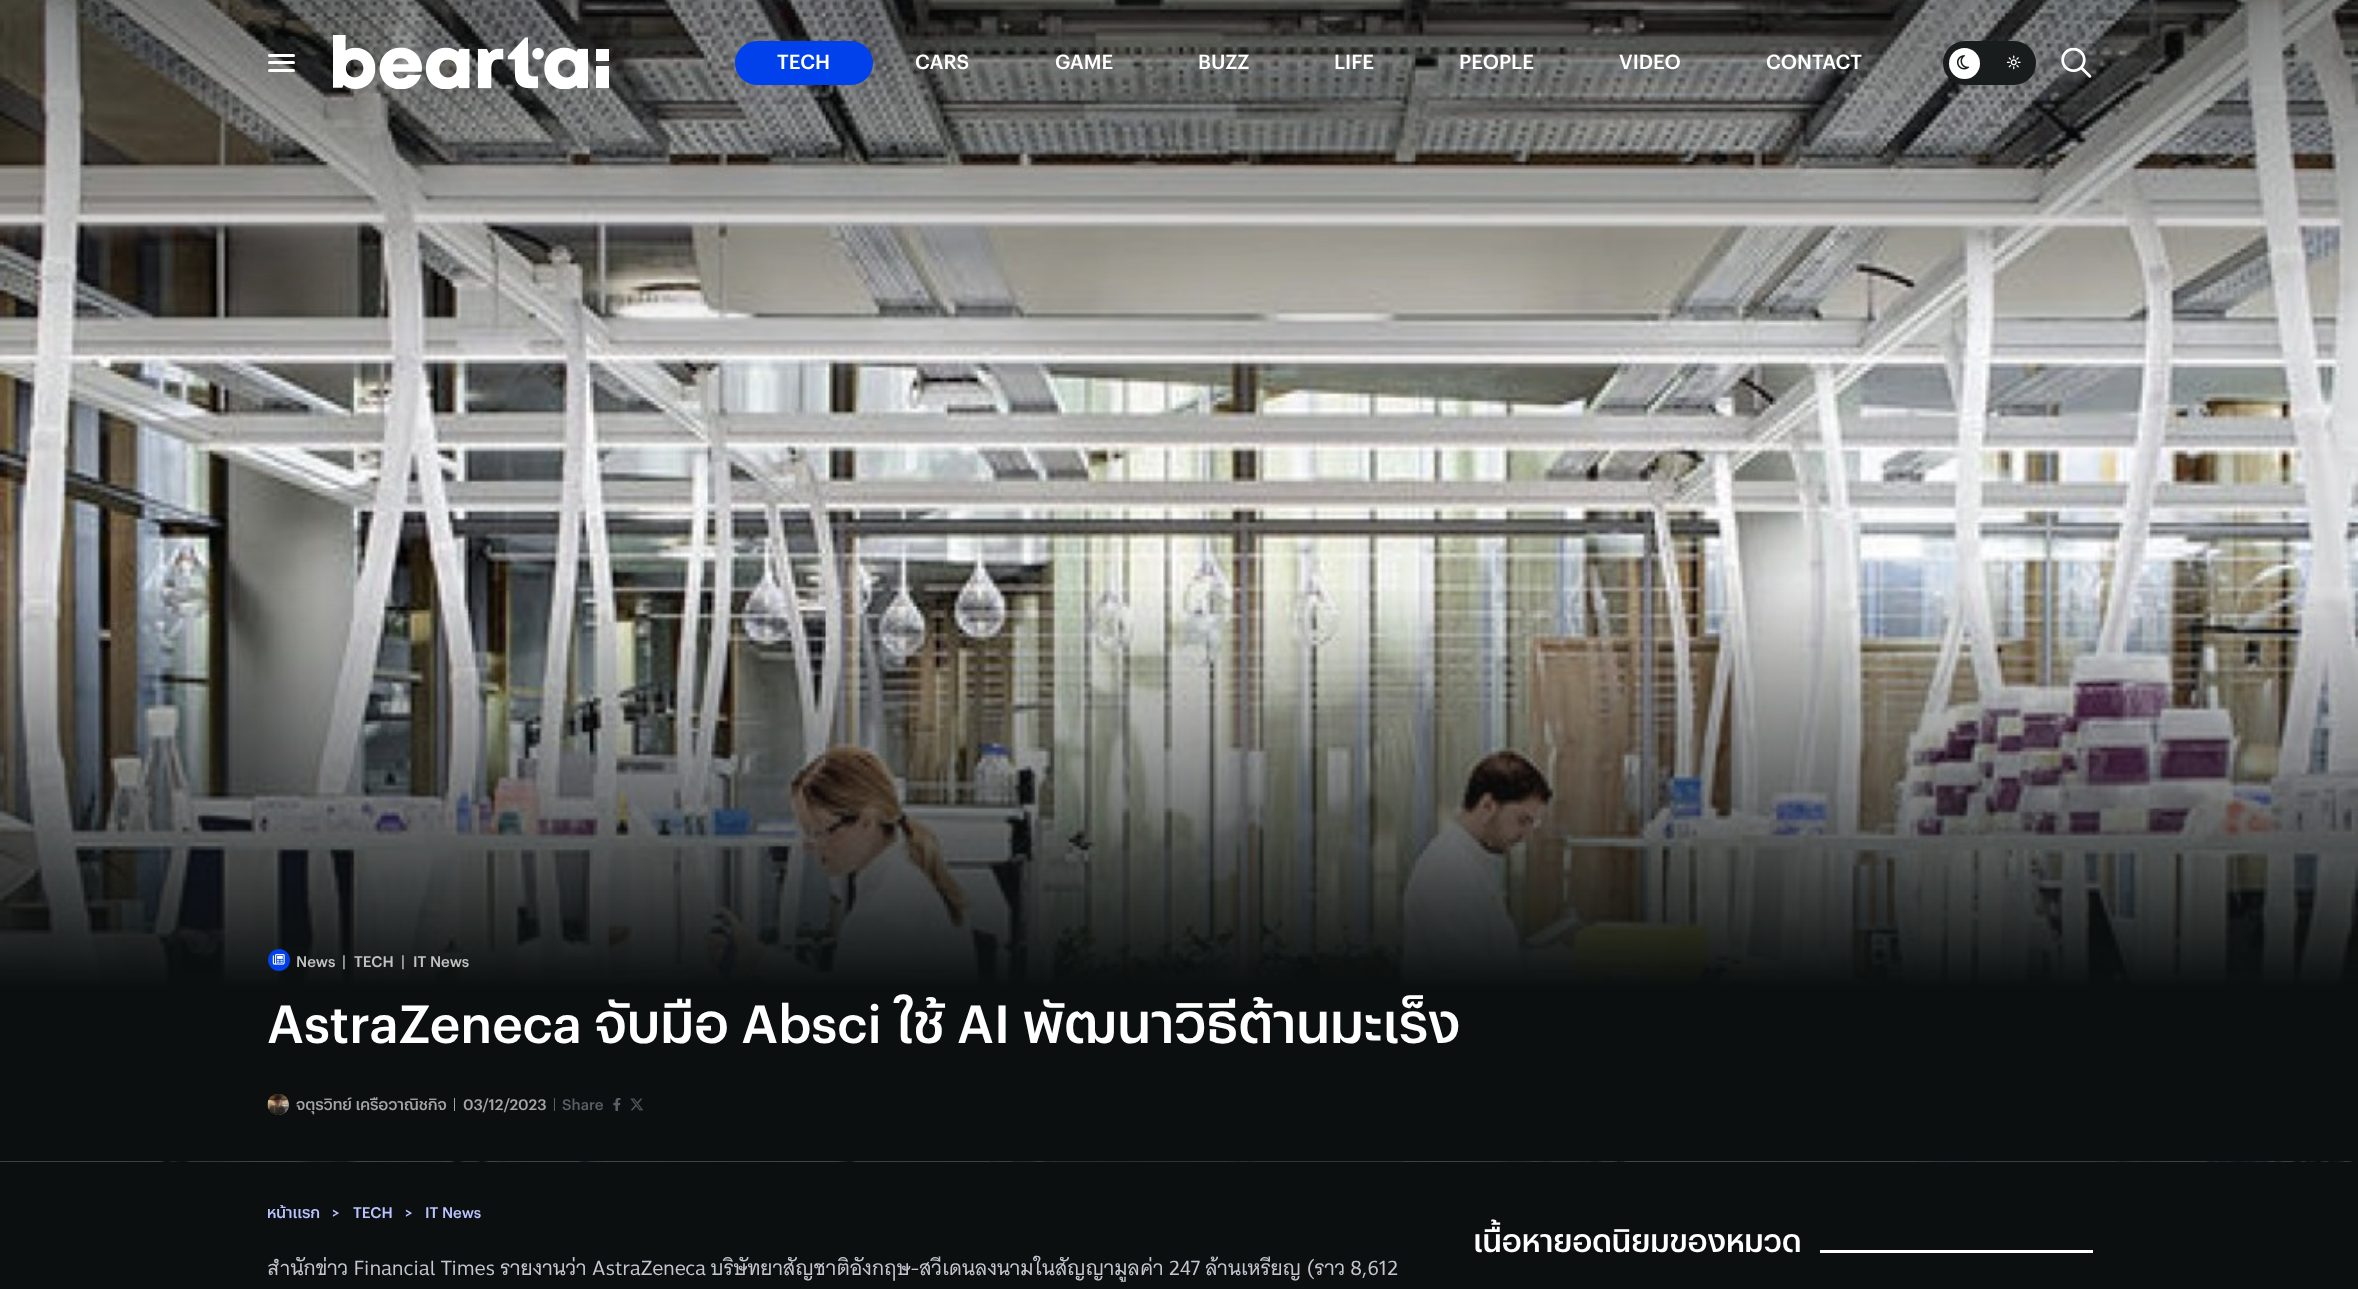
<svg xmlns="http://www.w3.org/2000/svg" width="2358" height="1289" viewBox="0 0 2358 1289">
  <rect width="100%" height="100%" fill="rgb(11,15,15)"/>
  <image x="0" y="0" width="2358" height="1162" href="pic5.png"/>
  <rect x="268" y="54" width="27" height="3" rx="1.5" fill="rgb(255,255,255)"/>
  <rect x="268" y="61" width="27" height="3" rx="1.5" fill="rgb(255,255,255)"/>
  <rect x="268" y="69" width="27" height="3" rx="1.5" fill="rgb(255,255,255)"/>
  <image x="333" y="35" width="276" height="54" href="pic1.png"/>
  <rect x="735" y="41" width="138" height="44" rx="22" fill="rgb(0,65,236)"/>
  <g font-family="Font" font-size="20" font-weight="500" fill="rgb(255,255,255)">
    <text x="777" y="69">TECH</text>
    <text x="915" y="69">CARS</text>
    <text x="1055" y="69">GAME</text>
    <text x="1198" y="69">BUZZ</text>
    <text x="1334" y="69">LIFE</text>
    <text x="1459" y="69">PEOPLE</text>
    <text x="1619" y="69">VIDEO</text>
    <text x="1766" y="69">CONTACT</text>
  </g>
  <rect x="1943" y="41" width="93" height="44" rx="22" fill="rgb(25,28,29)"/>
  <circle cx="1964.5" cy="63.5" r="15.5" fill="rgb(255,255,255)"/>
  <image x="1956" y="55" width="14" height="15" href="pic2.png"/>
  <image x="2006" y="55" width="15" height="15" href="pic3.png"/>
  <image x="2061" y="48" width="31" height="30" href="pic4.png"/>
  <image x="268" y="949" width="22" height="22" href="pic6.png"/>
  <g font-family="Font" font-size="15" font-weight="500" fill="rgb(194,194,194)">
    <text x="296" y="967">News</text>
    <text x="342" y="967">|</text>
    <text x="354" y="967">TECH</text>
    <text x="401" y="967">|</text>
    <text x="413" y="967">IT News</text>
  </g>
  <text x="267" y="1043" font-family="Font" font-size="52.5" font-weight="500" fill="rgb(255,255,255)">AstraZeneca จับมือ Absci ใช้ AI พัฒนาวิธีต้านมะเร็ง</text>
  <circle cx="278.5" cy="1104.5" r="10.5" fill="rgb(164,164,164)"/>
  <image x="267" y="1094" width="22" height="21" href="pic7.png"/>
  <text x="296" y="1110" font-family="Font" font-size="15" font-weight="500" fill="rgb(164,164,164)">จตุรวิทย์ เครือวาณิชกิจ</text>
  <rect x="454" y="1098" width="1" height="13" fill="rgb(164,164,164)"/>
  <text x="463" y="1110" font-family="Font" font-size="15" font-weight="500" fill="rgb(164,164,164)">03/12/2023</text>
  <rect x="554" y="1098" width="1" height="13" fill="rgb(92,94,103)"/>
  <text x="562" y="1110" font-family="Font" font-size="15" font-weight="500" fill="rgb(92,94,103)">Share</text>
  <image x="613" y="1098" width="8" height="13" href="pic8.png"/>
  <image x="630" y="1098" width="14" height="13" href="pic9.png"/>
  <g font-family="Font" font-size="15" font-weight="500" fill="rgb(185,195,255)">
    <text x="267" y="1218">หน้าแรก</text>
    <text x="332" y="1218">&gt;</text>
    <text x="353" y="1218">TECH</text>
    <text x="405" y="1218">&gt;</text>
    <text x="425" y="1218">IT News</text>
  </g>
  <text x="267" y="1275" font-family="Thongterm" font-size="20" fill="rgb(197,198,208)">สำนักข่าว Financial Times รายงานว่า AstraZeneca บริษัทยาสัญชาติอังกฤษ-สวีเดนลงนามในสัญญามูลค่า 247 ล้านเหรียญ (ราว 8,612</text>
  <text x="1473" y="1252" font-family="Font" font-size="30" font-weight="500" fill="rgb(255,255,255)">เนื้อหายอดนิยมของหมวด</text>
  <rect x="1820" y="1250" width="273" height="3" fill="rgb(255,255,255)"/>
</svg>
